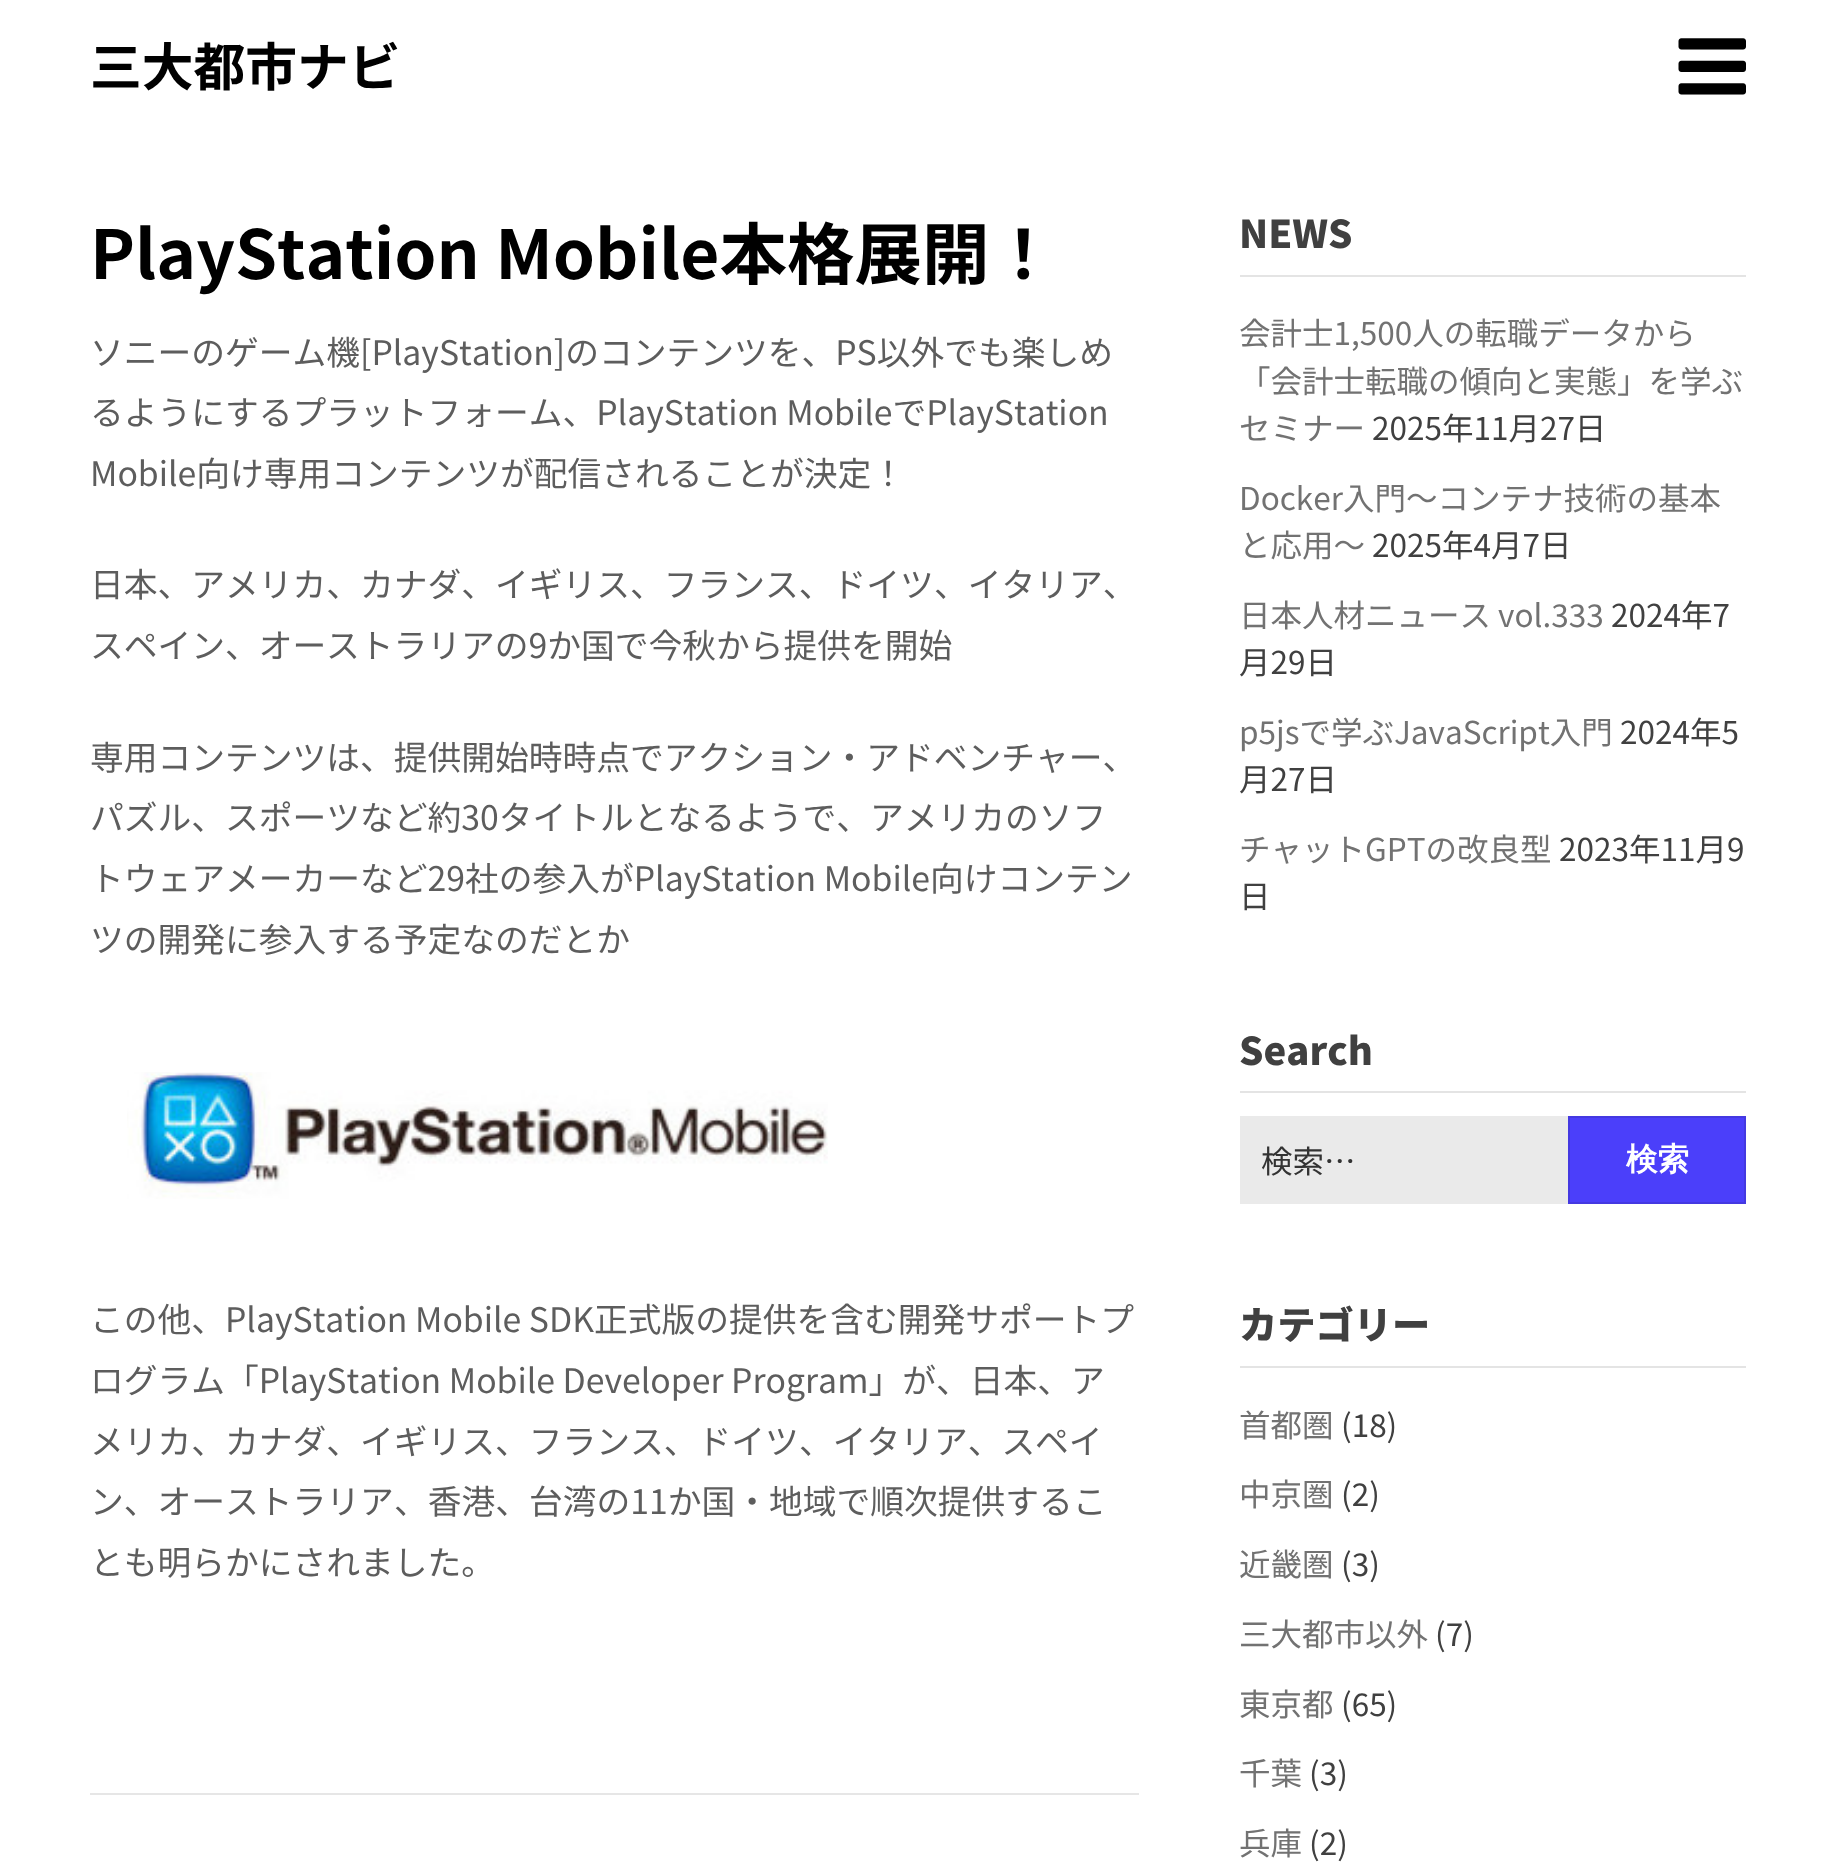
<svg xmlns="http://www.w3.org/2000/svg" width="1834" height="1868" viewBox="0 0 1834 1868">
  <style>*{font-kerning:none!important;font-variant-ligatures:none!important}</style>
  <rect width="100%" height="100%" fill="rgb(255,255,255)"/>
  <text x="90" y="86" font-family="Noto Sans JP" font-size="51.75" font-weight="bold" fill="rgb(0,0,0)">三大都市ナビ</text>
  <image x="1678" y="38" width="68" height="57" href="pic1.png"/>
  <text x="90" y="279" font-family="Noto Sans JP" font-size="67.5" font-weight="bold" fill="rgb(0,0,0)">PlayStation Mobile本格展開！</text>
  <g font-family="Noto Sans JP" font-size="33.75" fill="rgb(93,93,93)">
    <text>
      <tspan x="90" y="365">ソニーのゲーム機[PlayStation]のコンテンツを、PS以外でも楽しめ</tspan>
      <tspan x="90" y="425">るようにするプラットフォーム、PlayStation MobileでPlayStation</tspan>
      <tspan x="90" y="486">Mobile向け専用コンテンツが配信されることが決定！</tspan>
    </text>
    <text x="90" y="597">日本、アメリカ、カナダ、イギリス、フランス、ドイツ</text>
    <text x="934" y="597">、イタリア、</text>
    <text x="90" y="658">スペイン、オー</text>
    <text x="326" y="658">ストラリアの9か国で今秋から提供を開始</text>
    <text>
      <tspan x="90" y="770">専用コンテンツは、提供開始時時点でアクション・アドベンチャー、</tspan>
      <tspan x="90" y="830">パズル、スポーツなど約30タイトルとなるようで、アメリカのソフ</tspan>
      <tspan x="90" y="891">トウェアメーカーなど29社の参入がPlayStation Mobile向けコンテン</tspan>
      <tspan x="90" y="952">ツの開発に参入する予定なのだとか</tspan>
    </text>
  </g>
  <image x="127" y="1072" width="701" height="127" href="pic2.png"/>
  <g font-family="Noto Sans JP" font-size="33.75" fill="rgb(93,93,93)">
    <text>
      <tspan x="90" y="1332">この他、PlayStation Mobile SDK正式版の提供を含む開発サポートプ</tspan>
      <tspan x="90" y="1393">ログラム「PlayStation Mobile Developer Program」が</tspan>
    </text>
    <text x="936" y="1393">、日本、ア</text>
    <text x="90" y="1454">メリカ、カナダ、イギリス、フランス、ドイツ</text>
    <text x="799" y="1454">、イタリア、ス</text>
    <text x="1035" y="1454">ペイ</text>
    <text x="90" y="1514">ン、オーストラリア</text>
    <text x="394" y="1514">、香港、台湾の11か国・地域で順次提供するこ</text>
    <text x="90" y="1575">とも明らかにされました。</text>
  </g>
  <rect x="90" y="1793" width="1049" height="2" fill="rgb(230,230,230)"/>
  <rect x="1240" y="275" width="506" height="2" fill="rgb(228,228,228)"/>
  <text x="1239" y="248" font-family="Noto Sans JP" font-size="38.25" font-weight="900" fill="rgb(64,64,64)">NEWS</text>
  <g font-family="Noto Sans JP" font-size="31.5" fill="rgb(114,114,114)">
    <text>
      <tspan x="1239" y="345">会計士1,500人の転職データから</tspan>
      <tspan x="1239" y="393">「会計士転職の傾向と実態」を学ぶ</tspan>
      <tspan x="1239" y="440">セミナー</tspan>
    </text>
  </g>
  <text x="1372" y="440" font-family="Noto Sans JP" font-size="31.5" fill="rgb(64,64,64)">2025年11月27日</text>
  <g font-family="Noto Sans JP" font-size="31.5" fill="rgb(114,114,114)">
    <text>
      <tspan x="1239" y="510">Docker入門～コンテナ技術の基本</tspan>
      <tspan x="1239" y="557">と応用～</tspan>
    </text>
  </g>
  <text x="1372" y="557" font-family="Noto Sans JP" font-size="31.5" fill="rgb(64,64,64)">2025年4月7日</text>
  <text x="1239" y="627" font-family="Noto Sans JP" font-size="31.5" fill="rgb(114,114,114)">日本人材ニュース vol.333</text>
  <g font-family="Noto Sans JP" font-size="31.5" fill="rgb(64,64,64)">
    <text x="1611" y="627">2024年7</text>
    <text x="1239" y="674">月29日</text>
  </g>
  <text x="1239" y="744" font-family="Noto Sans JP" font-size="31.5" fill="rgb(114,114,114)">p5jsで学ぶJavaScript入門</text>
  <g font-family="Noto Sans JP" font-size="31.5" fill="rgb(64,64,64)">
    <text x="1620" y="744">2024年5</text>
    <text x="1239" y="791">月27日</text>
  </g>
  <text x="1239" y="861" font-family="Noto Sans JP" font-size="31.5" fill="rgb(114,114,114)">チャットGPTの改良型</text>
  <g font-family="Noto Sans JP" font-size="31.5" fill="rgb(64,64,64)">
    <text x="1559" y="861">2023年11月9</text>
    <text x="1239" y="908">日</text>
  </g>
  <rect x="1240" y="1091" width="506" height="2" fill="rgb(228,228,228)"/>
  <text x="1239" y="1065" font-family="Noto Sans JP" font-size="38.25" font-weight="900" fill="rgb(64,64,64)">Search</text>
  <rect x="1240" y="1116" width="328" height="88" fill="rgb(234,234,234)"/>
  <text x="1261" y="1173" font-family="Noto Sans JP" font-size="31.5" fill="rgb(51,51,51)">検索…</text>
  <rect x="1569" y="1117" width="176" height="86" fill="rgb(75,63,250)" stroke="rgb(68,57,225)" stroke-width="2"/>
  <text x="1626" y="1170" font-family="WenQuanYi Zen Hei" font-size="31.5" font-weight="bold" fill="rgb(255,255,255)">検索</text>
  <rect x="1240" y="1366" width="506" height="2" fill="rgb(228,228,228)"/>
  <text x="1239" y="1339" font-family="Noto Sans JP" font-size="38.25" font-weight="900" fill="rgb(64,64,64)">カテゴリー</text>
  <text x="1239" y="1437" font-family="Noto Sans JP" font-size="31.5" fill="rgb(114,114,114)">首都圏</text>
  <text x="1341" y="1437" font-family="Noto Sans JP" font-size="31.5" fill="rgb(64,64,64)">(18)</text>
  <text x="1239" y="1506" font-family="Noto Sans JP" font-size="31.5" fill="rgb(114,114,114)">中京圏</text>
  <text x="1341" y="1506" font-family="Noto Sans JP" font-size="31.5" fill="rgb(64,64,64)">(2)</text>
  <text x="1239" y="1576" font-family="Noto Sans JP" font-size="31.5" fill="rgb(114,114,114)">近畿圏</text>
  <text x="1341" y="1576" font-family="Noto Sans JP" font-size="31.5" fill="rgb(64,64,64)">(3)</text>
  <text x="1239" y="1646" font-family="Noto Sans JP" font-size="31.5" fill="rgb(114,114,114)">三大都市以外</text>
  <text x="1435" y="1646" font-family="Noto Sans JP" font-size="31.5" fill="rgb(64,64,64)">(7)</text>
  <text x="1239" y="1716" font-family="Noto Sans JP" font-size="31.5" fill="rgb(114,114,114)">東京都</text>
  <text x="1341" y="1716" font-family="Noto Sans JP" font-size="31.5" fill="rgb(64,64,64)">(65)</text>
  <text x="1239" y="1785" font-family="Noto Sans JP" font-size="31.5" fill="rgb(114,114,114)">千葉</text>
  <text x="1309" y="1785" font-family="Noto Sans JP" font-size="31.5" fill="rgb(64,64,64)">(3)</text>
  <text x="1239" y="1855" font-family="Noto Sans JP" font-size="31.5" fill="rgb(114,114,114)">兵庫</text>
  <text x="1309" y="1855" font-family="Noto Sans JP" font-size="31.5" fill="rgb(64,64,64)">(2)</text>
</svg>
